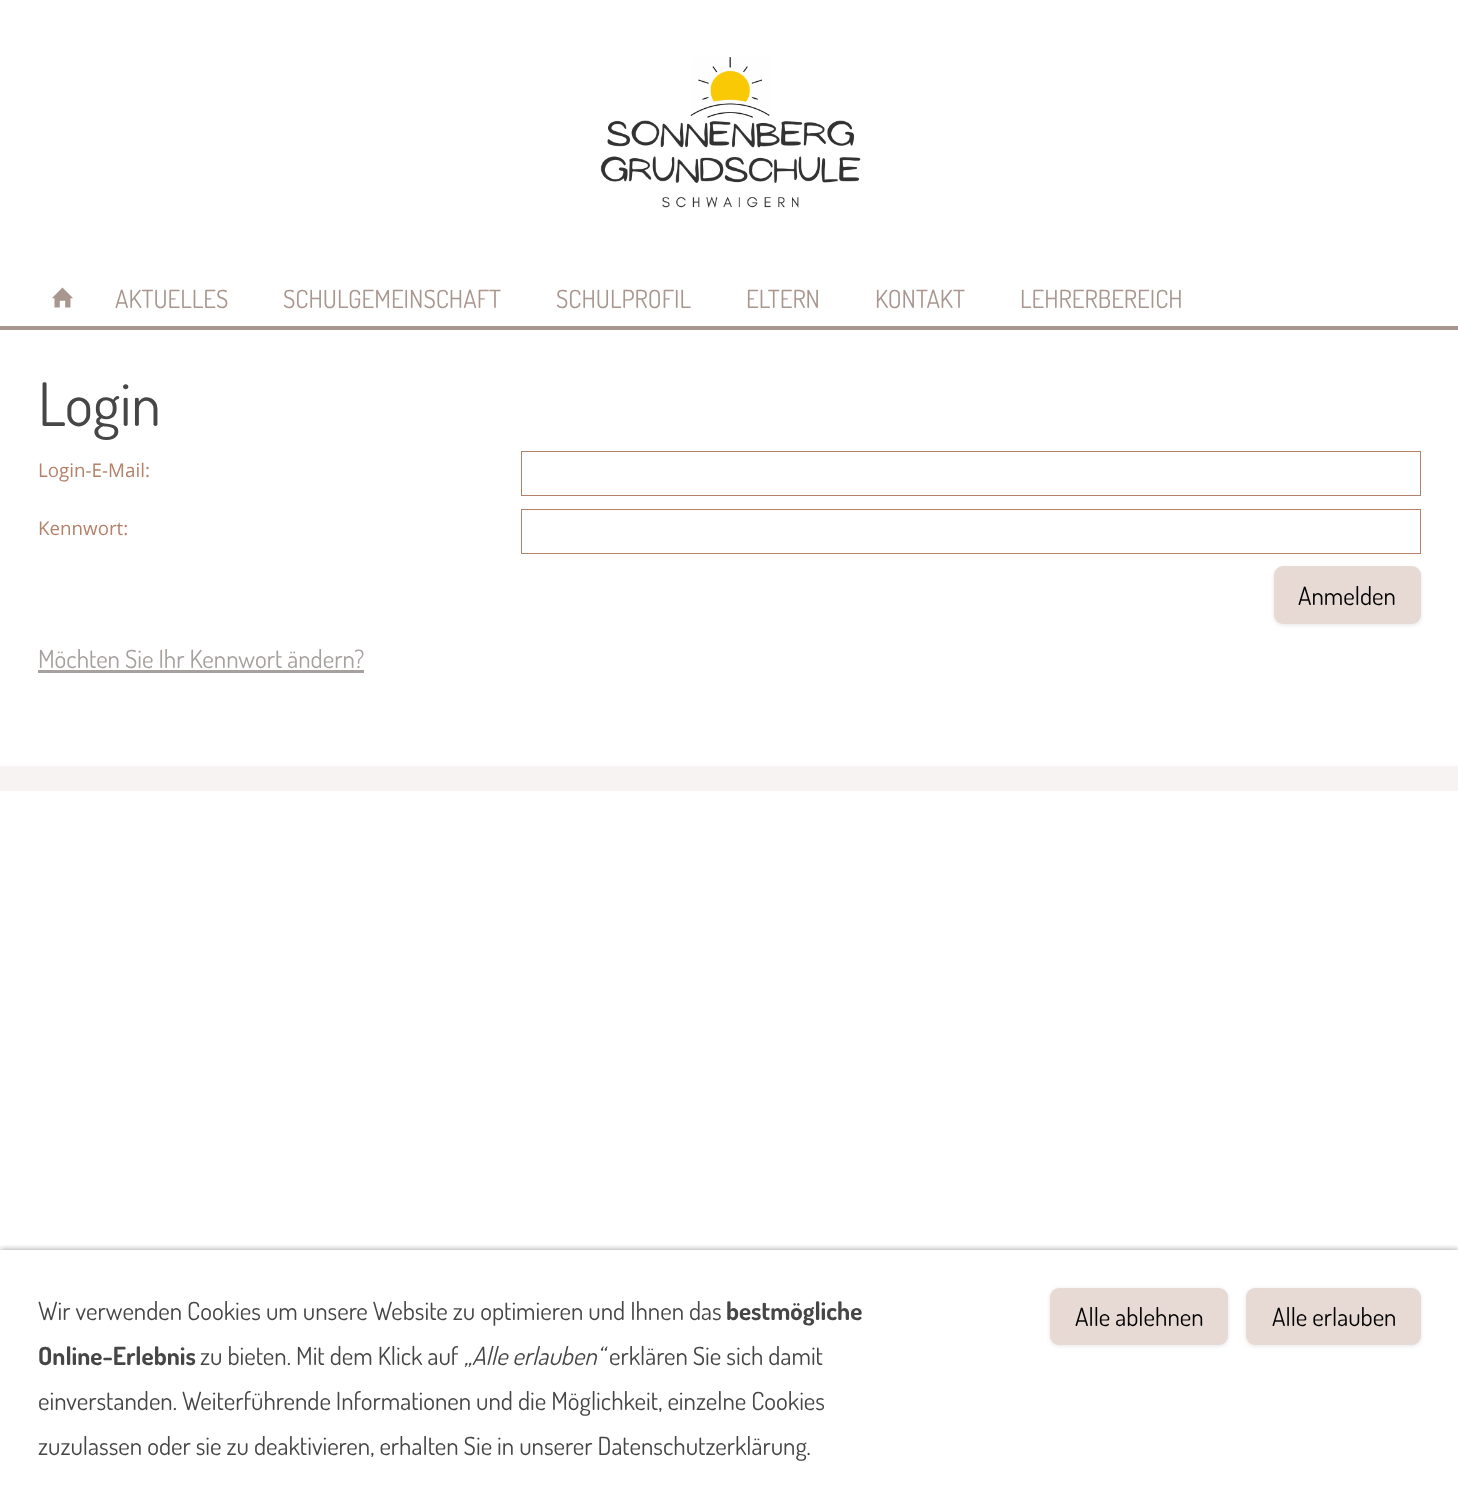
<svg xmlns="http://www.w3.org/2000/svg" width="1458" height="1504" viewBox="0 0 1458 1504">
  <defs>
    <clipPath id="clip1"><rect x="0" y="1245" width="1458" height="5"/></clipPath>
  </defs>
  <rect width="100%" height="100%" fill="rgb(255,255,255)"/>
  <image x="600" y="57" width="261" height="151" href="pic1.png"/>
  <image x="52" y="287" width="21" height="21" href="pic2.png"/>
  <g font-family="Dosis" font-size="25" fill="rgb(169,151,143)">
    <text x="115" y="308">AKTUELLES</text>
    <text x="283" y="308">SCHULGEMEINSCHAFT</text>
    <text x="556" y="308">SCHULPROFIL</text>
    <text x="746" y="308">ELTERN</text>
    <text x="875" y="308">KONTAKT</text>
    <text x="1020" y="308">LEHRERBEREICH</text>
  </g>
  <rect x="0" y="326" width="1458" height="4" fill="rgb(169,151,143)"/>
  <text x="38" y="426" font-family="Dosis" font-size="60" fill="rgb(70,70,70)">Login</text>
  <text x="38" y="477" font-family="Open Sans" font-size="18.75" fill="rgb(180,129,106)">Login-E-Mail:</text>
  <rect x="521.5" y="451.5" width="899" height="44" fill="none" stroke="rgb(180,129,106)"/>
  <text x="38" y="535" font-family="Open Sans" font-size="18.75" fill="rgb(180,129,106)">Kennwort:</text>
  <rect x="521.5" y="509.5" width="899" height="44" fill="none" stroke="rgb(180,129,106)"/>
  <rect x="1274" y="568" width="147" height="57" rx="9" fill="rgba(0,0,0,0.1)" filter="blur(2px)"/>
  <rect x="1274" y="566" width="147" height="58" rx="9" fill="rgb(231,217,212)"/>
  <text x="1298" y="605" font-family="Dosis" font-size="25" fill="rgb(0,0,0)">Anmelden</text>
  <text x="38" y="668" font-family="Dosis" font-size="25" fill="rgb(166,160,158)">Möchten Sie Ihr Kennwort ändern?</text>
  <rect x="38" y="670" width="326" height="3" fill="rgb(166,160,158)"/>
  <rect x="0" y="766" width="1458" height="25" fill="rgb(247,243,242)"/>
  <g clip-path="url(#clip1)">
    <rect x="0" y="1250" width="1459" height="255" fill="rgba(0,0,0,0.4)" filter="blur(3px)"/>
  </g>
  <text x="38" y="1320" font-family="Dosis" font-size="25" fill="rgb(70,70,70)">Wir verwenden Cookies um unsere Website zu optimieren und Ihnen das</text>
  <g font-family="Dosis" font-size="25" font-weight="bold" fill="rgb(70,70,70)">
    <text x="726" y="1320">bestmögliche</text>
    <text x="38" y="1365">Online-Erlebnis</text>
  </g>
  <text x="200" y="1365" font-family="Dosis" font-size="25" fill="rgb(70,70,70)">zu bieten. Mit dem Klick auf</text>
  <text x="464" y="1365" font-family="Dosis" font-size="25" font-style="italic" fill="rgb(70,70,70)">„Alle erlauben“</text>
  <g font-family="Dosis" font-size="25" fill="rgb(70,70,70)">
    <text x="609" y="1365">erklären Sie sich damit</text>
    <text>
      <tspan x="38" y="1410">einverstanden. Weiterführende Informationen und die Möglichkeit, einzelne Cookies</tspan>
      <tspan x="38" y="1455">zuzulassen oder sie zu deaktivieren, erhalten Sie in unserer Datenschutzerklärung.</tspan>
    </text>
  </g>
  <rect x="1050" y="1289" width="178" height="57" rx="9" fill="rgba(0,0,0,0.1)" filter="blur(2px)"/>
  <rect x="1050" y="1288" width="178" height="57" rx="9" fill="rgb(231,217,212)"/>
  <text x="1075" y="1326" font-family="Dosis" font-size="25" fill="rgb(0,0,0)">Alle ablehnen</text>
  <rect x="1246" y="1289" width="175" height="57" rx="9" fill="rgba(0,0,0,0.1)" filter="blur(2px)"/>
  <rect x="1246" y="1288" width="175" height="57" rx="9" fill="rgb(231,217,212)"/>
  <text x="1272" y="1326" font-family="Dosis" font-size="25" fill="rgb(0,0,0)">Alle erlauben</text>
</svg>
